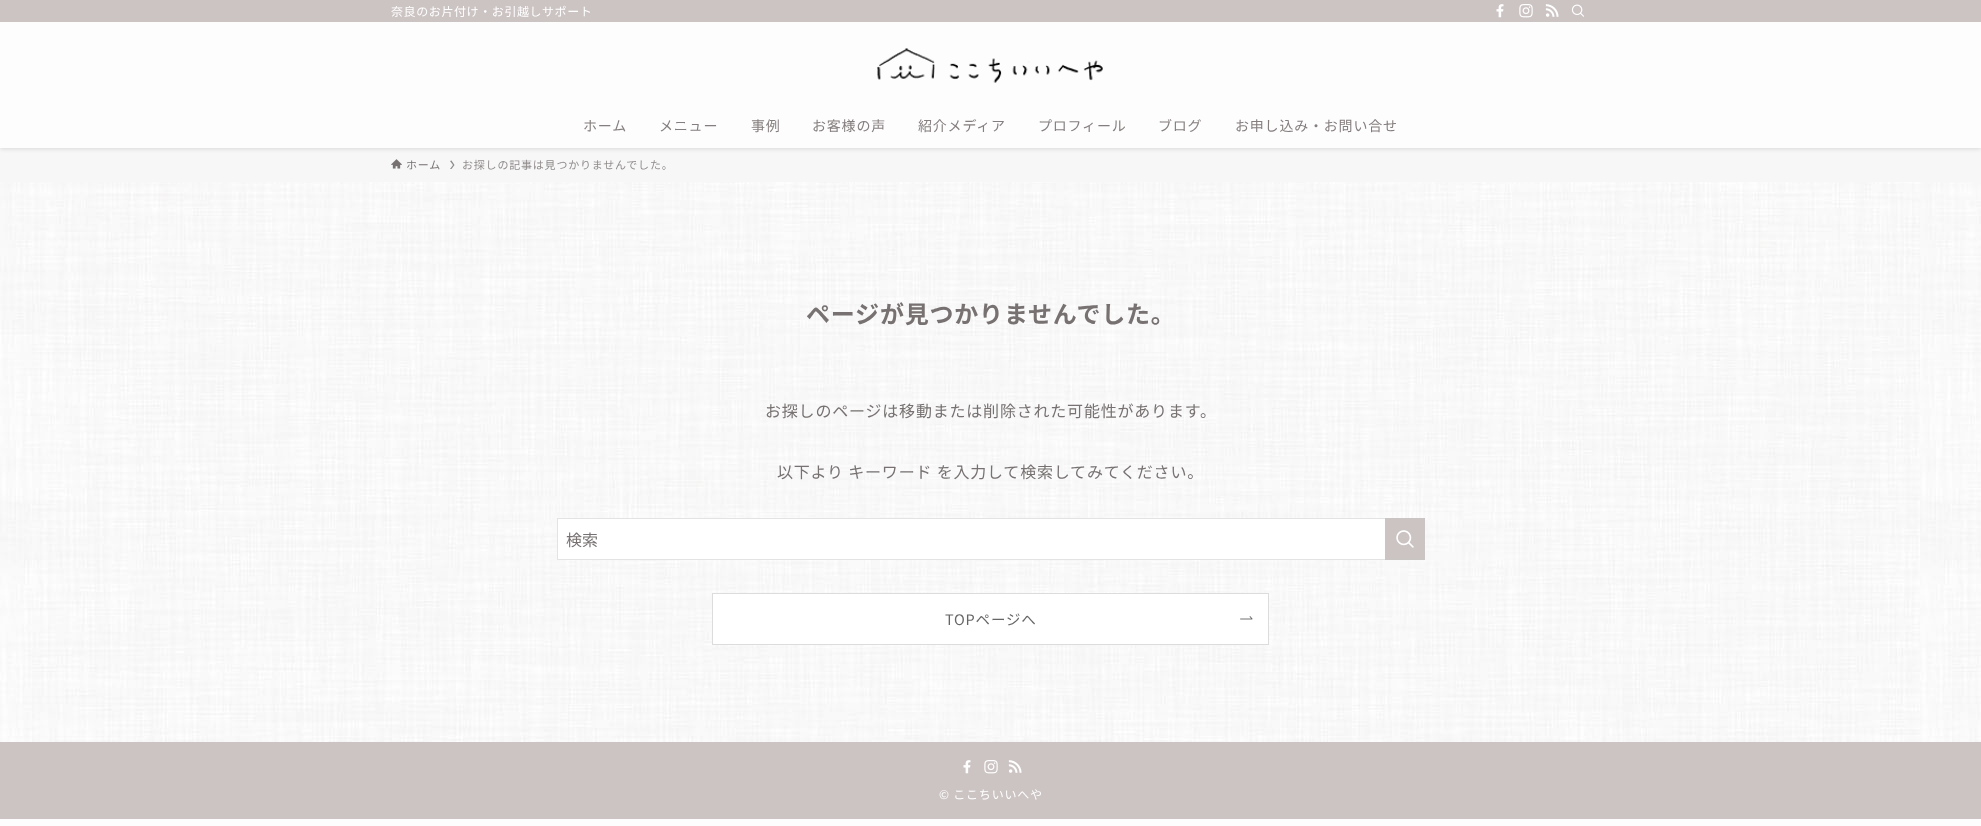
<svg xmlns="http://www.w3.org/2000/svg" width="1981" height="826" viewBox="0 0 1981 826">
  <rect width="100%" height="100%" fill="rgb(253,253,253)"/>
  <image x="0" y="182" width="1981" height="560" href="pic1.png"/>
  <rect x="0" y="148" width="1981" height="34" fill="rgb(247,247,247)"/>
  <rect x="0" y="1" width="1981" height="148" fill="rgba(0,0,0,0.12)" filter="blur(2px)"/>
  <rect x="0" y="22" width="1981" height="126" fill="rgb(253,253,253)"/>
  <rect x="0" y="0" width="1981" height="22" fill="rgb(204,195,195)"/>
  <text x="391" y="16" font-family="Noto Sans JP" font-size="12" letter-spacing="0.6" fill="rgb(255,255,255)">奈良のお片付け・お引越しサポート</text>
  <image x="1496" y="4" width="8" height="14" href="pic2.png"/>
  <image x="1519" y="4" width="14" height="14" href="pic3.png"/>
  <image x="1545" y="4" width="14" height="13" href="pic4.png"/>
  <image x="1571" y="4" width="13" height="13" href="pic5.png"/>
  <image x="877" y="48" width="226" height="35" href="pic6.png"/>
  <g font-family="Noto Sans JP" font-size="14" letter-spacing="0.8" fill="rgb(133,126,126)">
    <text x="583" y="131">ホーム</text>
    <text x="659" y="131">メニュー</text>
    <text x="751" y="131">事例</text>
    <text x="812" y="131">お客様の声</text>
    <text x="918" y="131">紹介メディア</text>
    <text x="1038" y="131">プロフィール</text>
    <text x="1158" y="131">ブログ</text>
    <text x="1235" y="131">お申し込み・お問い合せ</text>
  </g>
  <image x="391" y="159" width="11" height="10" href="pic7.png"/>
  <text x="406" y="169" font-family="Noto Sans JP" font-size="11" letter-spacing="0.8" fill="rgb(119,113,113)">ホーム</text>
  <path d="M451.5 160.5L450 161L453 165L450 169H451.5L454.5 165Z" fill="rgb(145,140,140)"/>
  <text x="462" y="169" font-family="Noto Sans JP" font-size="11" letter-spacing="0.8" fill="rgb(145,140,140)">お探しの記事は見つかりませんでした。</text>
  <text x="806" y="323" font-family="Noto Sans JP" font-size="24" font-weight="bold" letter-spacing="0.8" fill="rgb(119,113,113)">ページが見つかりませんでした。</text>
  <g font-family="Noto Sans JP" font-size="16" letter-spacing="0.8" fill="rgb(119,113,113)">
    <text x="765" y="417">お探しのページは移動または削除された可能性があります。</text>
    <text x="777" y="478">以下より キーワード を入力して検索してみてください。</text>
  </g>
  <rect x="558" y="519" width="827" height="40" fill="rgb(255,255,255)"/>
  <rect x="557.5" y="518.5" width="867" height="41" fill="none" stroke="rgb(227,227,227)"/>
  <text x="566" y="546" font-family="Noto Sans JP" font-size="16" fill="rgb(119,113,113)">検索</text>
  <rect x="1385.5" y="518.5" width="39" height="41" fill="rgb(204,195,195)" stroke="rgb(202,197,197)"/>
  <image x="1396" y="530" width="18" height="18" href="pic8.png"/>
  <rect x="712.5" y="593.5" width="556" height="51" fill="none" stroke="rgb(220,220,220)"/>
  <rect x="713" y="594" width="555" height="50" fill="rgb(255,255,255)"/>
  <text x="945" y="625" font-family="Noto Sans JP" font-size="14.5" letter-spacing="0.8" fill="rgb(102,102,102)">TOPページへ</text>
  <image x="1240" y="616" width="13" height="4" href="pic9.png"/>
  <rect x="0" y="742" width="1981" height="77" fill="rgb(204,195,195)"/>
  <image x="963" y="760" width="8" height="14" href="pic2.png"/>
  <image x="984" y="760" width="14" height="14" href="pic3.png"/>
  <image x="1008" y="760" width="14" height="13" href="pic4.png"/>
  <text x="939" y="799" font-family="Noto Sans JP" font-size="12" letter-spacing="0.8" fill="rgb(255,255,255)">© ここちいいへや</text>
</svg>
